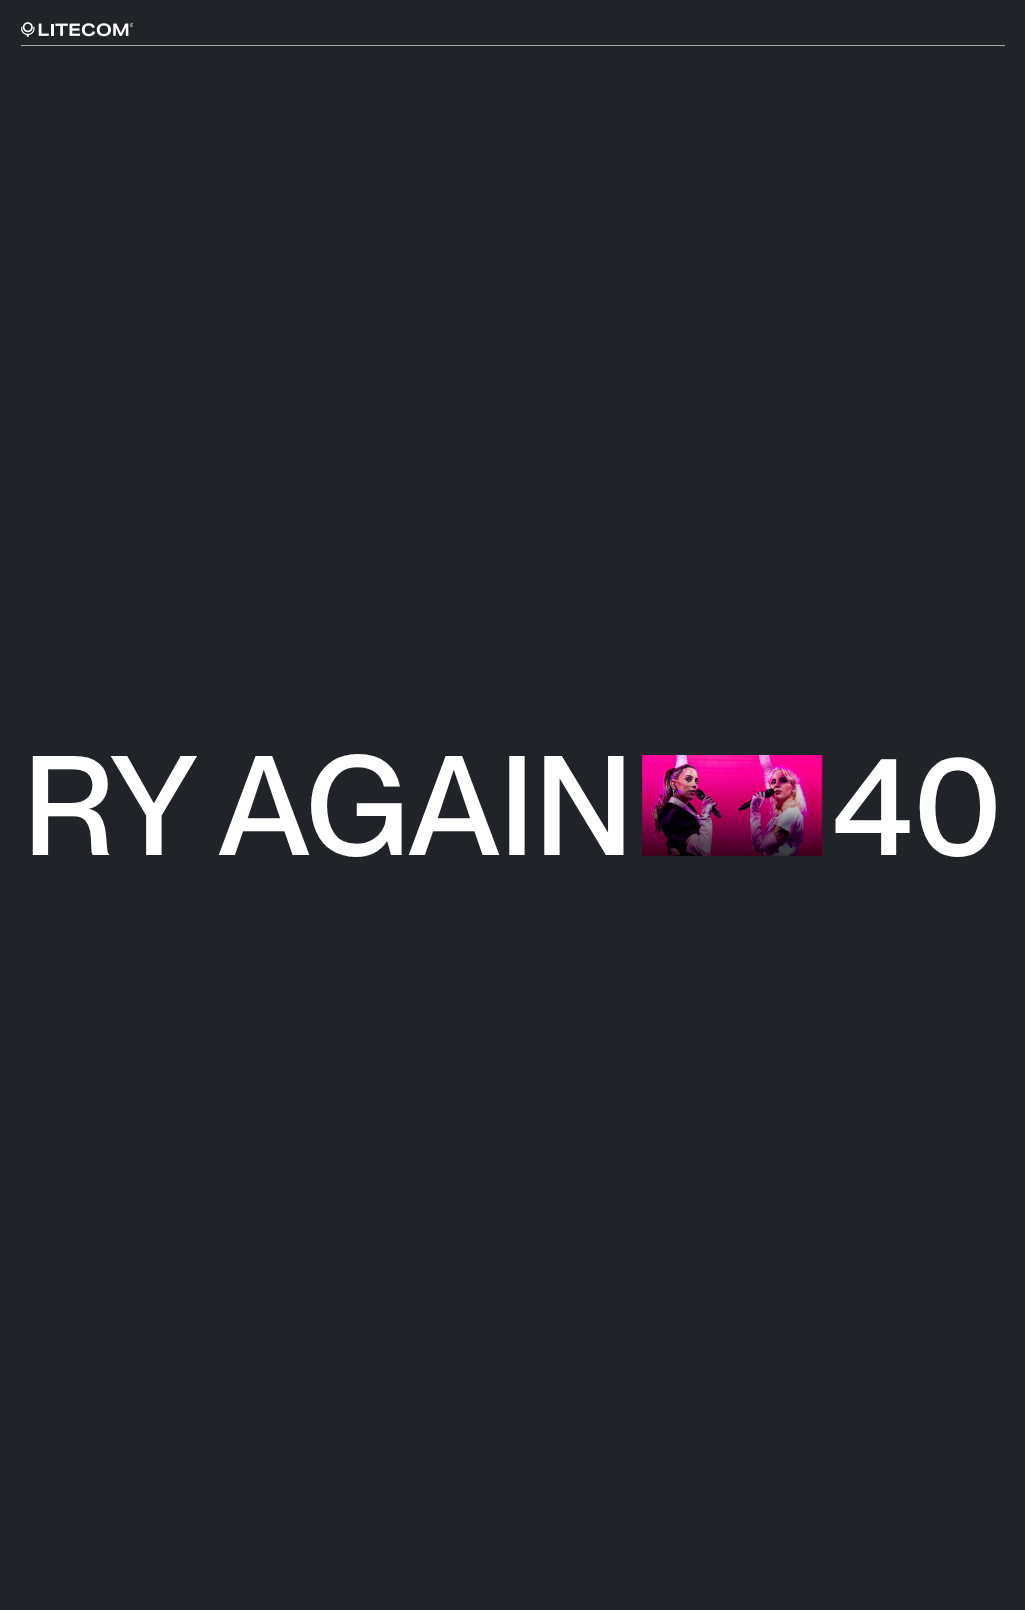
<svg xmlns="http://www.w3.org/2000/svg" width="1025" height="1610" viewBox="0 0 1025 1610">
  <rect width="100%" height="100%" fill="rgb(32,35,39)"/>
  <image x="21" y="22" width="112" height="15" href="pic1.png"/>
  <rect x="21" y="45" width="984" height="1" fill="rgb(166,167,169)"/>
  <text x="23" y="855" font-family="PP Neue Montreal" font-size="138.5" font-weight="500" fill="rgb(255,255,255)">RY AGAIN</text>
  <image x="642" y="755" width="181" height="101" href="pic2.png"/>
  <text x="832" y="855" font-family="PP Neue Montreal" font-size="138.5" font-weight="500" fill="rgb(255,255,255)">40</text>
</svg>
